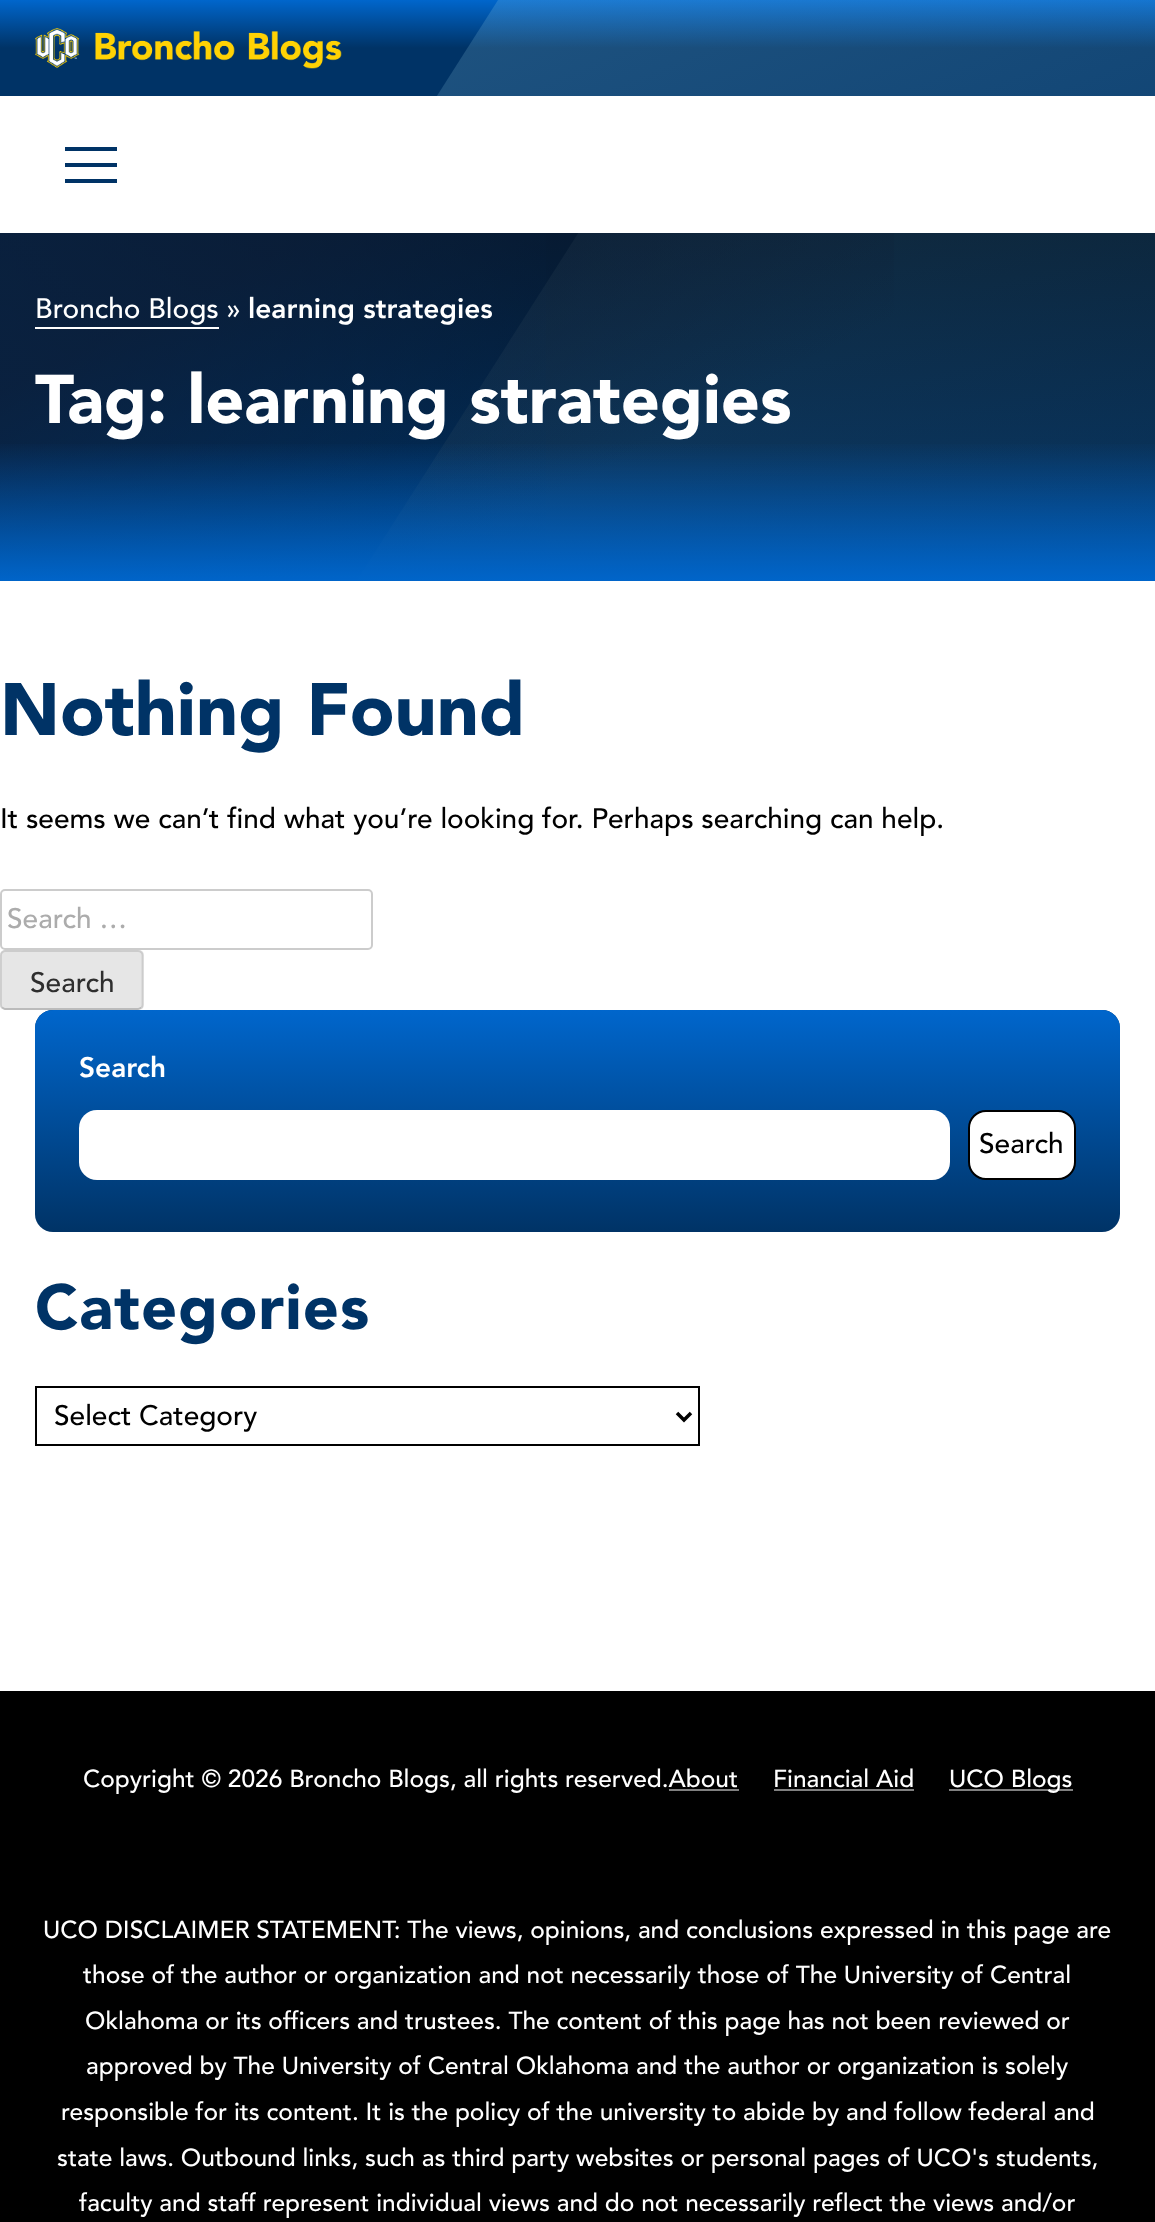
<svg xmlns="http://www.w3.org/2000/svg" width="1155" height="2222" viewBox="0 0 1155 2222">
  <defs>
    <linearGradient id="g1" gradientUnits="userSpaceOnUse" x1="578" y1="96" x2="578" y2="0"><stop offset="0.5" stop-color="rgb(0,51,102)"/><stop offset="1" stop-color="rgb(0,102,204)"/></linearGradient>
    <clipPath id="clip1"><rect x="0" y="0" width="1155" height="96"/></clipPath>
    <linearGradient id="g2" gradientUnits="userSpaceOnUse" x1="620" y1="-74" x2="963" y2="762"><stop offset="0" stop-color="rgb(154,212,233)" stop-opacity="0.2"/><stop offset="1" stop-color="rgb(154,212,233)" stop-opacity="0"/></linearGradient>
    <linearGradient id="g3" gradientUnits="userSpaceOnUse" x1="578" y1="233" x2="578" y2="581"><stop offset="0" stop-color="rgb(0,26,51)"/><stop offset="1" stop-color="rgb(0,51,103)"/></linearGradient>
    <clipPath id="clip2"><rect x="0" y="233" width="1155" height="348"/></clipPath>
    <linearGradient id="g4" gradientUnits="userSpaceOnUse" x1="620" y1="284" x2="963" y2="1121"><stop offset="0" stop-color="rgb(77,106,117)" stop-opacity="0.2"/><stop offset="1" stop-color="rgb(77,106,117)" stop-opacity="0"/></linearGradient>
    <linearGradient id="g5" gradientUnits="userSpaceOnUse" x1="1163" y1="376" x2="-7.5" y2="438"><stop offset="0.49" stop-color="rgb(0,51,102)" stop-opacity="0"/><stop offset="0.98" stop-color="rgb(0,51,102)" stop-opacity="0.7"/></linearGradient>
    <linearGradient id="g6" gradientUnits="userSpaceOnUse" x1="388" y1="35" x2="767" y2="779"><stop offset="0.17" stop-color="rgb(14,27,50)" stop-opacity="0.7"/><stop offset="0.58" stop-color="rgb(14,27,50)" stop-opacity="0"/></linearGradient>
    <linearGradient id="g7" gradientUnits="userSpaceOnUse" x1="578" y1="441" x2="578" y2="684"><stop offset="0" stop-color="rgb(0,102,204)" stop-opacity="0"/><stop offset="0.59" stop-color="rgb(0,102,204)"/></linearGradient>
    <linearGradient id="g8" gradientUnits="userSpaceOnUse" x1="578" y1="1010" x2="578" y2="1232"><stop offset="0" stop-color="rgb(0,102,204)"/><stop offset="1" stop-color="rgb(0,102,204)" stop-opacity="0"/></linearGradient>
  </defs>
  <rect width="100%" height="100%" fill="rgb(255,255,255)"/>
  <rect x="0" y="0" width="1155" height="96" fill="url(#g1)"/>
  <image x="35" y="28" width="307" height="41" href="pic1.png"/>
  <g clip-path="url(#clip1)">
    <path d="M0 782L798-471H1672L957 782Z" fill="url(#g2)"/>
  </g>
  <rect x="65" y="163" width="52" height="4" fill="rgb(0,51,102)"/>
  <rect x="65" y="147" width="52" height="4" fill="rgb(0,51,102)"/>
  <rect x="65" y="179" width="52" height="4" fill="rgb(0,51,102)"/>
  <rect x="0" y="233" width="1155" height="348" fill="url(#g3)"/>
  <g clip-path="url(#clip2)">
    <path d="M0 1141L798-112H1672L957 1141Z" fill="url(#g4)"/>
  </g>
  <rect x="0" y="233" width="546" height="348" fill="url(#g5)"/>
  <rect x="0" y="233" width="894" height="348" fill="url(#g6)"/>
  <rect x="0" y="444" width="1155" height="137" fill="url(#g7)"/>
  <text x="35" y="318" font-family="Avenir" font-size="28" font-weight="500" fill="rgb(255,255,255)">Broncho Blogs »</text>
  <rect x="35" y="327" width="184" height="2" fill="rgb(255,255,255)"/>
  <text x="248" y="318" font-family="Avenir" font-size="28" font-weight="900" fill="rgb(255,255,255)">learning strategies</text>
  <text x="35" y="423" font-family="'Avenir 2'" font-size="68.25" font-weight="900" fill="rgb(255,255,255)">Tag: learning strategies</text>
  <text x="0" y="735" font-family="'Avenir 2'" font-size="73.5" font-weight="900" fill="rgb(0,51,102)">Nothing Found</text>
  <text x="0" y="828" font-family="Avenir" font-size="28" font-weight="500" fill="rgb(0,0,0)">It seems we can’t find what you’re looking for. Perhaps searching can help.</text>
  <rect x="1" y="890" width="371" height="59" rx="4" fill="none" stroke="rgb(204,204,204)" stroke-width="2"/>
  <text x="7" y="928" font-family="Avenir" font-size="28" font-weight="500" fill="rgb(172,172,172)">Search …</text>
  <rect x="0" y="950" width="144" height="60" rx="5" fill="rgb(230,230,230)"/>
  <path d="M141.5 1007.5L138 1009H5L2 1007.5" fill="none" stroke="rgb(187,187,187)" stroke-width="1.8"/>
  <path d="M2 1007.5C1.5 1007 1 1005.5 1 1004.5V955.5C1 954.5 1.5 953 2 952.5C3 951.5 4 951 5 951H138C139.5 951 140.5 951.5 141.5 952.5C142 953 142.5 954.5 142.5 955.5V1004.5C142.5 1005.5 142 1007 141.5 1007.5" fill="none" stroke="rgb(204,204,204)" stroke-width="1.8"/>
  <text x="30" y="992" font-family="Avenir" font-size="28" font-weight="500" fill="rgb(46,46,46)">Search</text>
  <rect x="35" y="1010" width="1085" height="222" rx="18" fill="rgb(0,51,102)"/>
  <rect x="35" y="1010" width="1085" height="222" rx="18" fill="url(#g8)"/>
  <text x="79" y="1077" font-family="Avenir" font-size="28" font-weight="900" fill="rgb(255,255,255)">Search</text>
  <rect x="79" y="1110" width="871" height="70" rx="18" fill="rgb(255,255,255)"/>
  <rect x="969" y="1111" width="106" height="68" rx="17" fill="rgb(255,255,255)" stroke="rgb(0,0,0)" stroke-width="2"/>
  <text x="979" y="1153" font-family="Avenir" font-size="28" font-weight="500" fill="rgb(0,0,0)">Search</text>
  <text x="35" y="1329" font-family="'Avenir 2'" font-size="63" font-weight="900" letter-spacing="1.1" fill="rgb(0,51,102)">Categories</text>
  <rect x="36" y="1387" width="663" height="58" fill="none" stroke="rgb(0,0,0)" stroke-width="2"/>
  <path d="M677 1413L684 1420L691 1413" fill="none" stroke="rgb(0,0,0)" stroke-width="3.5"/>
  <text x="54" y="1425" font-family="Avenir" font-size="28" font-weight="500" fill="rgb(0,0,0)">Select Category</text>
  <rect x="0" y="1691" width="1155" height="531" fill="rgb(0,0,0)"/>
  <text x="83" y="1787" font-family="Avenir" font-size="24.5" font-weight="500" fill="rgb(255,255,255)">Copyright © 2026 Broncho Blogs, all rights reserved.About</text>
  <rect x="669" y="1789" width="70" height="2" fill="rgb(128,128,128)"/>
  <text x="773" y="1787" font-family="Avenir" font-size="24.5" font-weight="500" fill="rgb(255,255,255)">Financial Aid</text>
  <rect x="774" y="1789" width="140" height="2" fill="rgb(128,128,128)"/>
  <rect x="949" y="1789" width="124" height="2" fill="rgb(128,128,128)"/>
  <g font-family="Avenir" font-size="24.5" font-weight="500" fill="rgb(255,255,255)">
    <text x="949" y="1787">UCO Blogs</text>
    <text x="43" y="1938">UCO DISCLAIMER STATEMENT: The views, opinions, and conclusions expressed in this page are</text>
    <text x="83" y="1983">those of the author or organization and not necessarily those of The University of Central</text>
    <text x="85" y="2029">Oklahoma or its officers and trustees. The content of this page has not been reviewed or</text>
    <text x="86" y="2074">approved by The University of Central Oklahoma and the author or organization is solely</text>
    <text x="61" y="2120">responsible for its content. It is the policy of the university to abide by and follow federal and</text>
    <text x="57" y="2166">state laws. Outbound links, such as third party websites or personal pages of UCO's students,</text>
    <text x="79" y="2211">faculty and staff represent individual views and do not necessarily reflect the views and/or</text>
  </g>
</svg>
